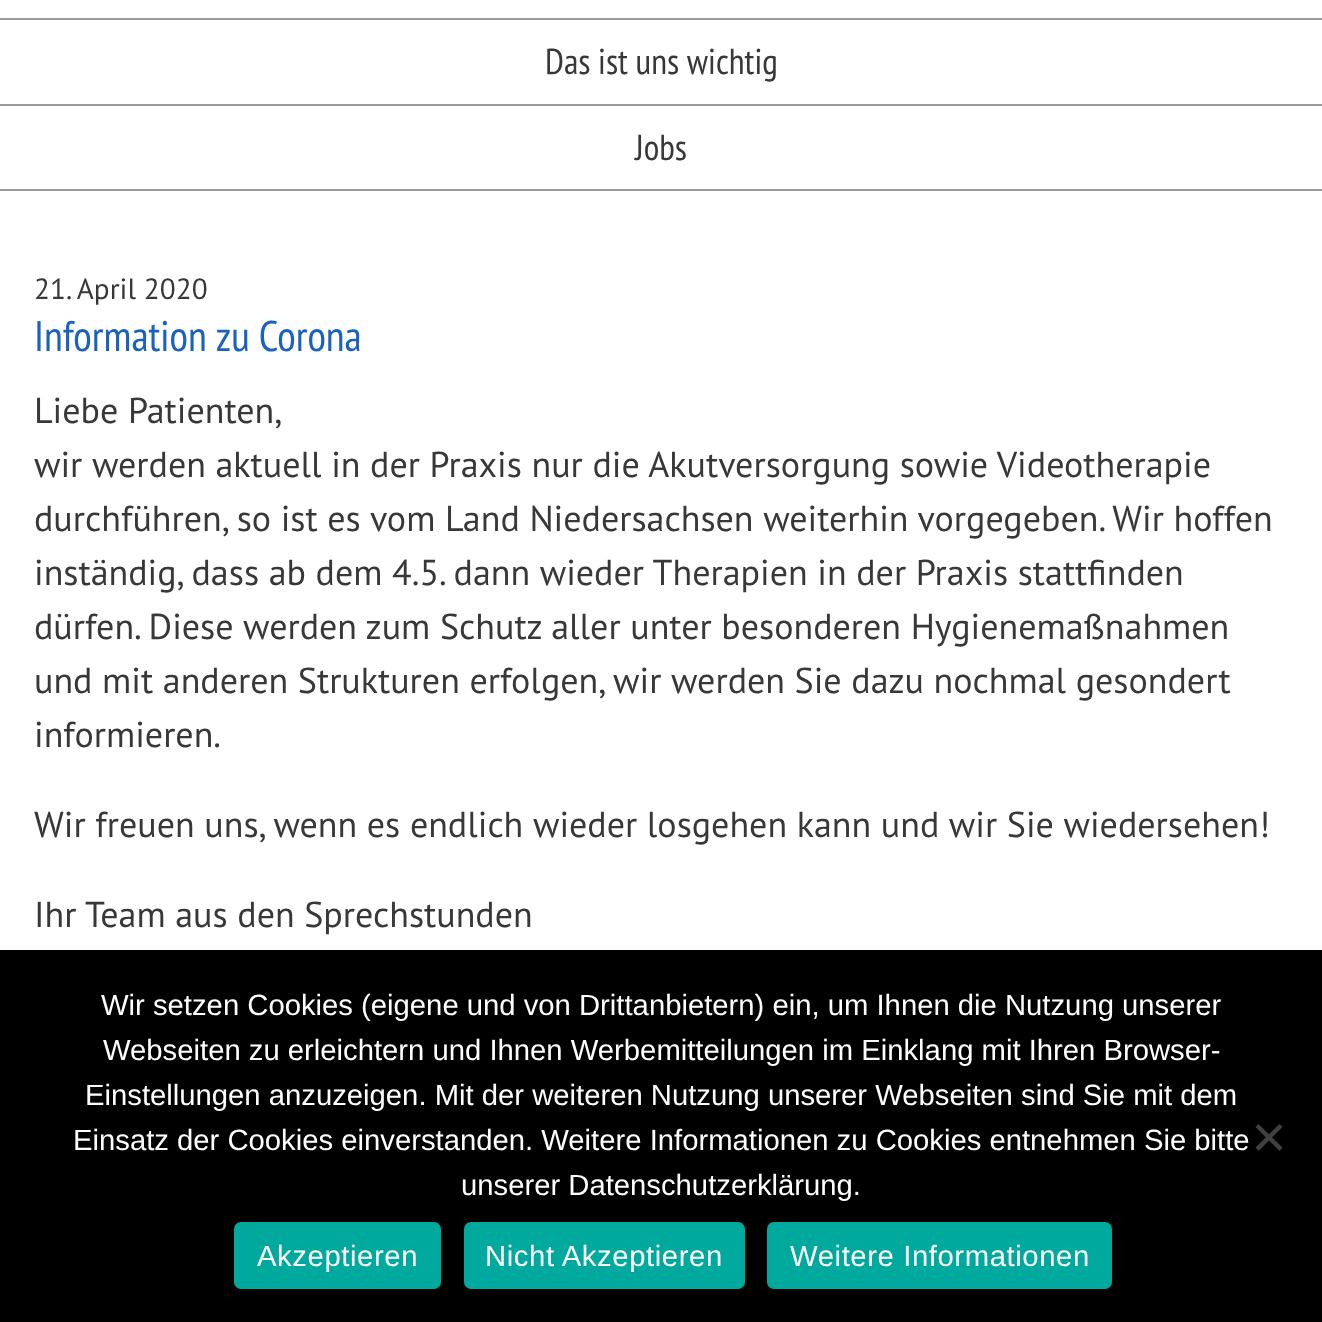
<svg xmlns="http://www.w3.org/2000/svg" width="1322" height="1322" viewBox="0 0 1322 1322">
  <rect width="100%" height="100%" fill="rgb(255,255,255)"/>
  <rect x="0" y="18" width="1322" height="2" fill="rgb(153,153,153)"/>
  <rect x="0" y="104" width="1322" height="2" fill="rgb(153,153,153)"/>
  <text x="545" y="74" font-family="PT Sans Narrow" font-size="36" fill="rgb(56,56,56)">Das ist uns wichtig</text>
  <rect x="0" y="189" width="1322" height="2" fill="rgb(153,153,153)"/>
  <text x="635" y="160" font-family="PT Sans Narrow" font-size="36" fill="rgb(56,56,56)">Jobs</text>
  <text x="34" y="299" font-family="PT Sans" font-size="29.25" fill="rgb(56,56,56)">21. April 2020</text>
  <text x="34" y="351" font-family="PT Sans Narrow" font-size="42.75" fill="rgb(27,97,192)">Information zu Corona</text>
  <g font-family="PT Sans" font-size="36" fill="rgb(56,56,56)">
    <text>
      <tspan x="34" y="423">Liebe Patienten,</tspan>
      <tspan x="34" y="477">wir werden aktuell in der Praxis nur die Akutversorgung sowie Videotherapie</tspan>
      <tspan x="34" y="531">durchführen, so ist es vom Land Niedersachsen weiterhin vorgegeben. Wir hoffen</tspan>
      <tspan x="34" y="585">inständig, dass ab dem 4.5. dann wieder Therapien in der Praxis stattfinden</tspan>
      <tspan x="34" y="639">dürfen. Diese werden zum Schutz aller unter besonderen Hygienemaßnahmen</tspan>
      <tspan x="34" y="693">und mit anderen Strukturen erfolgen, wir werden Sie dazu nochmal gesondert</tspan>
      <tspan x="34" y="747">informieren.</tspan>
    </text>
    <text x="34" y="837">Wir freuen uns, wenn es endlich wieder losgehen kann und wir Sie wiedersehen!</text>
    <text x="34" y="927">Ihr Team aus den Sprechstunden</text>
  </g>
  <rect x="0" y="950" width="1322" height="372" fill="rgb(0,0,0)"/>
  <g font-family="Liberation Sans" font-size="29.25" fill="rgb(255,255,255)">
    <text x="101" y="1015">Wir setzen Cookies (eigene und von Drittanbietern) ein, um Ihnen die Nutzung unserer</text>
    <text x="103" y="1060">Webseiten zu erleichtern und Ihnen Werbemitteilungen im Einklang mit Ihren Browser-</text>
    <text x="85" y="1105">Einstellungen anzuzeigen. Mit der weiteren Nutzung unserer Webseiten sind Sie mit dem</text>
    <text x="73" y="1150">Einsatz der Cookies einverstanden. Weitere Informationen zu Cookies entnehmen Sie bitte</text>
    <text x="461" y="1195">unserer Datenschutzerklärung.</text>
  </g>
  <path d="M1279.5 1124L1282.5 1127L1258.5 1151L1255.5 1147.5Z" fill="rgb(64,64,64)"/>
  <path d="M1255.5 1127L1258.5 1124L1282.5 1147.5L1279.5 1151Z" fill="rgb(64,64,64)"/>
  <rect x="234" y="1222" width="207" height="67" rx="7" fill="rgb(0,169,157)"/>
  <text x="257" y="1266" font-family="Liberation Sans" font-size="29.25" letter-spacing="0.6" fill="rgb(255,255,255)">Akzeptieren</text>
  <rect x="464" y="1222" width="281" height="67" rx="7" fill="rgb(0,169,157)"/>
  <text x="485" y="1266" font-family="Liberation Sans" font-size="29.25" letter-spacing="0.6" fill="rgb(255,255,255)">Nicht Akzeptieren</text>
  <rect x="767" y="1222" width="345" height="67" rx="7" fill="rgb(0,169,157)"/>
  <text x="790" y="1266" font-family="Liberation Sans" font-size="29.25" letter-spacing="0.6" fill="rgb(255,255,255)">Weitere Informationen</text>
</svg>
